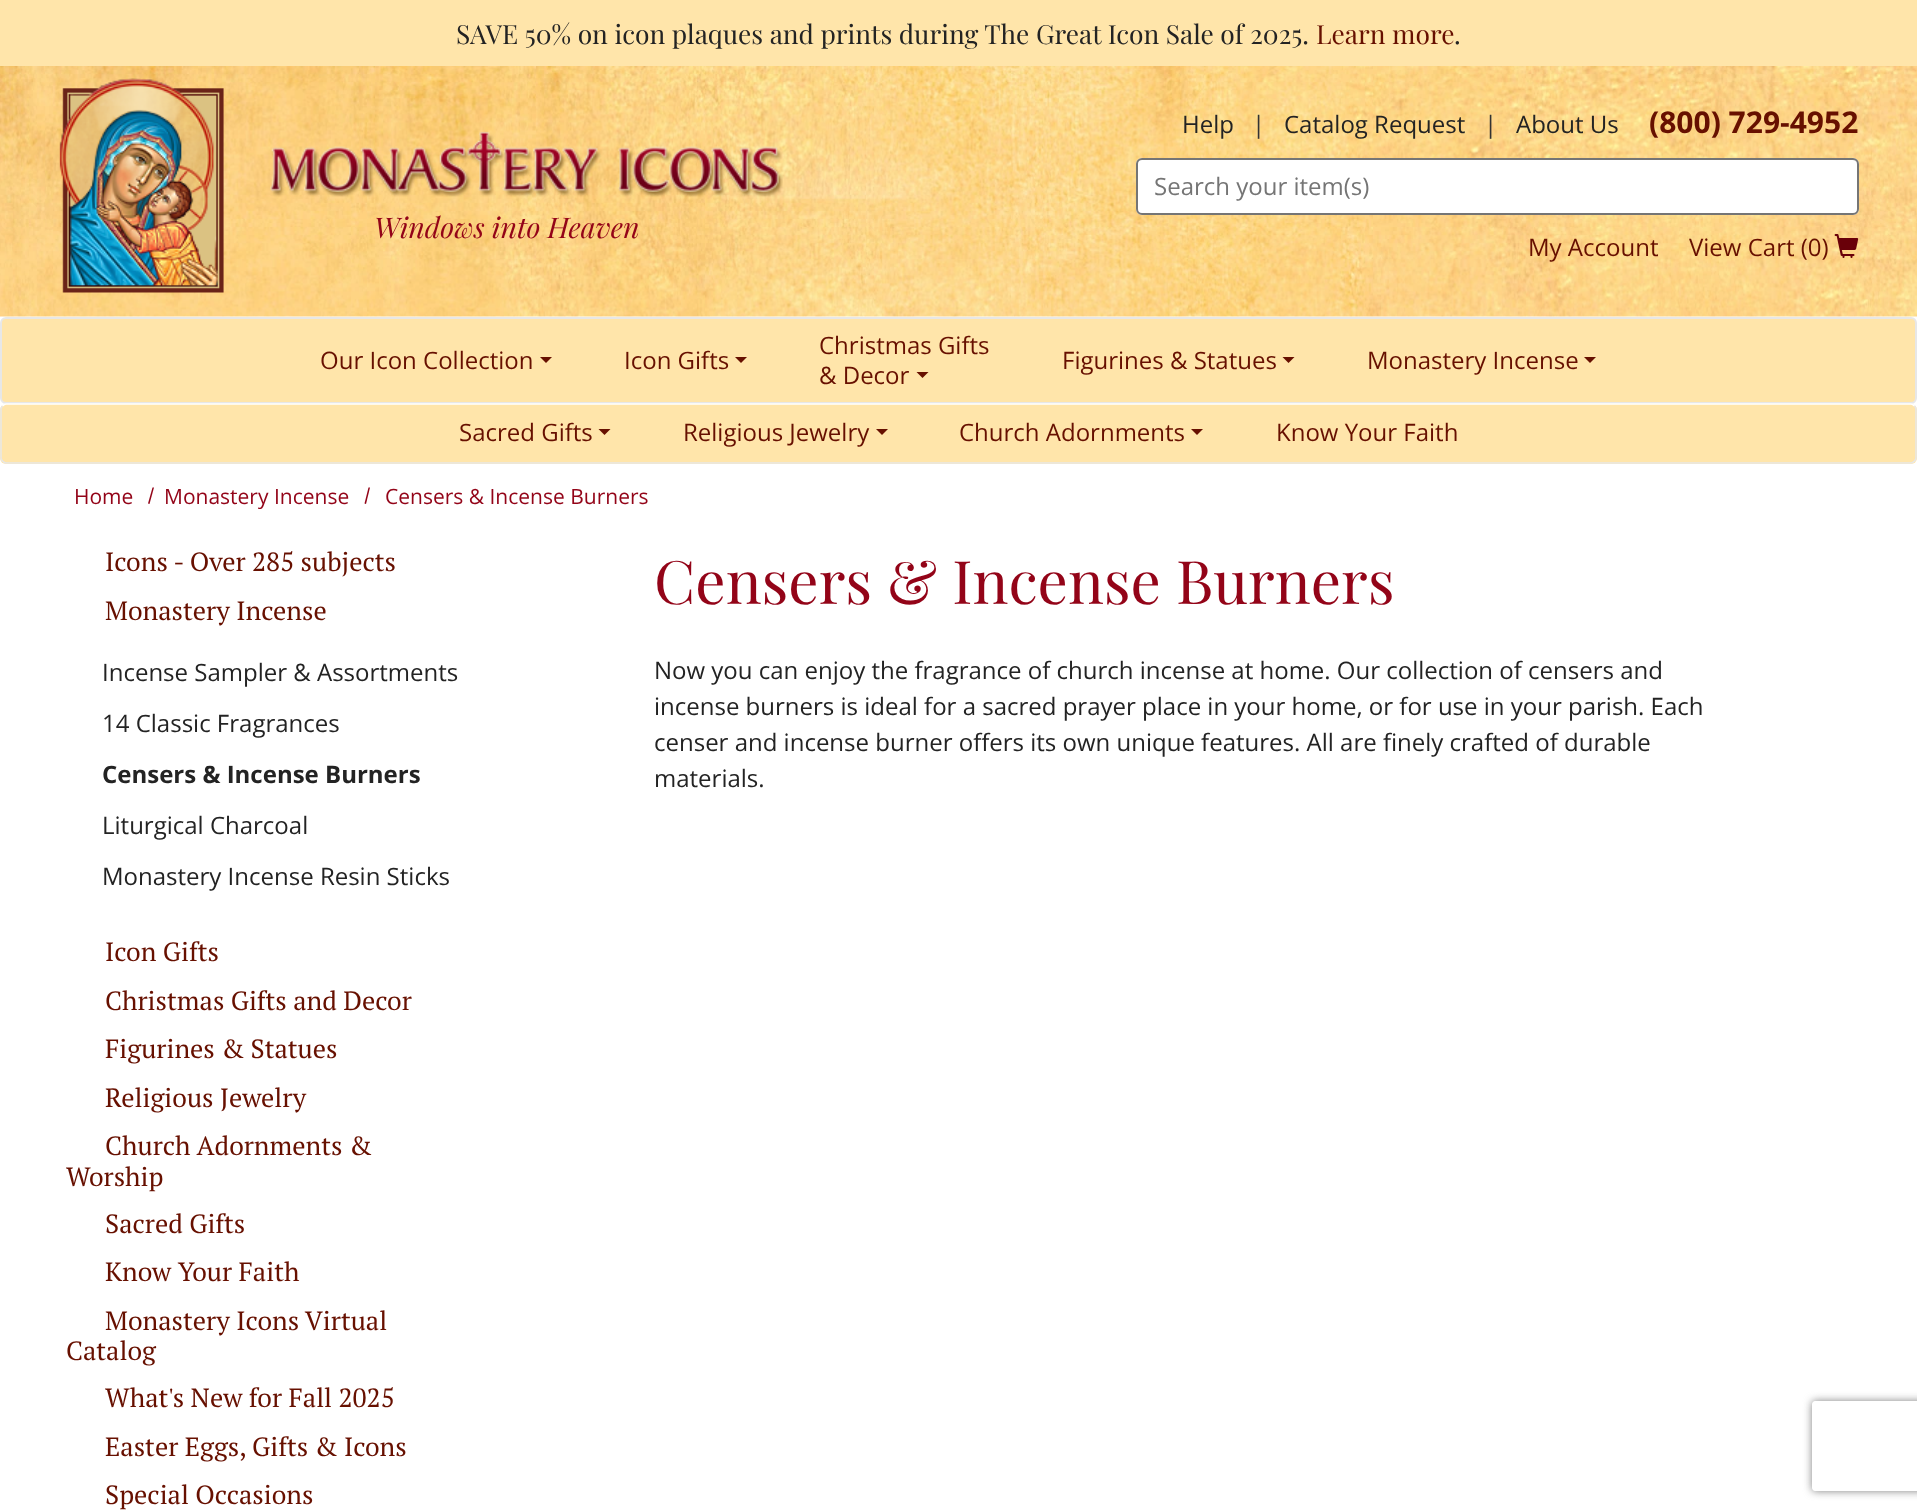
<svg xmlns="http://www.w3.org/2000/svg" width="1917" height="1512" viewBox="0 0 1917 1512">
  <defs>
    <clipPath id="clip1"><path d="M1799 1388H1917V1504H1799ZM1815 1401H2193C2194.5 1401 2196 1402.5 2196 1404V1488C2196 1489.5 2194.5 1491 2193 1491H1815C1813.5 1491 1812 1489.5 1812 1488V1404C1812 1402.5 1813.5 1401 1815 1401Z" clip-rule="evenodd"/></clipPath>
  </defs>
  <rect width="100%" height="100%" fill="rgb(255,255,255)"/>
  <rect x="0" y="0" width="1917" height="66" fill="rgb(255,229,170)"/>
  <text x="456" y="44" font-family="Playfair Display" font-size="26.4" fill="rgb(35,35,35)">SAVE 50% on icon plaques and prints during The Great Icon Sale of 2025.</text>
  <text x="1316" y="44" font-family="Playfair Display" font-size="26.4" fill="rgb(103,16,0)">Learn more</text>
  <text x="1454" y="44" font-family="Playfair Display" font-size="26.4" fill="rgb(35,35,35)">.</text>
  <image x="0" y="66" width="1917" height="251" href="pic1.png"/>
  <image x="59" y="78" width="724" height="215" href="pic2.png"/>
  <text x="374" y="238" font-family="Playfair Display" font-size="28.5" font-style="italic" fill="rgb(147,4,24)">Windows into Heaven</text>
  <text x="1182" y="133" font-family="Open Sans" font-size="24" fill="rgb(35,35,35)">Help</text>
  <text x="1252" y="133" font-family="Open Sans" font-size="24" fill="rgb(51,51,51)">|</text>
  <text x="1284" y="133" font-family="Open Sans" font-size="24" fill="rgb(35,35,35)">Catalog Request</text>
  <text x="1484" y="133" font-family="Open Sans" font-size="24" fill="rgb(51,51,51)">|</text>
  <text x="1516" y="133" font-family="Open Sans" font-size="24" fill="rgb(35,35,35)">About Us</text>
  <text x="1649" y="133" font-family="Open Sans" font-size="30" font-weight="bold" fill="rgb(103,16,0)">(800) 729-4952</text>
  <rect x="1136" y="158" width="723" height="57" rx="6" fill="rgb(255,255,255)"/>
  <path d="M1142 160H1852C1855 160 1857 163 1857 165C1857 162 1855 159 1852 159H1142C1139 159 1137 162 1137 165C1137 163 1139 160 1142 160Z" fill="rgb(236,236,236)"/>
  <rect x="1137" y="159" width="721" height="55" rx="5" fill="none" stroke="rgb(117,117,117)" stroke-width="2"/>
  <text x="1154" y="195" font-family="Open Sans" font-size="24" fill="rgb(117,117,117)">Search your item(s)</text>
  <g font-family="Open Sans" font-size="24" fill="rgb(103,16,0)">
    <text x="1528" y="256">My Account</text>
    <text x="1689" y="256">View Cart (0)</text>
  </g>
  <image x="1834" y="234" width="25" height="24" href="pic3.png"/>
  <rect x="1" y="318" width="1915" height="85" rx="5" fill="rgb(255,229,170)" stroke="rgb(231,231,231)" stroke-width="2"/>
  <text x="320" y="369" font-family="Open Sans" font-size="24" fill="rgb(103,16,0)">Our Icon Collection</text>
  <path d="M540 357H552L546 363Z" fill="rgb(103,16,0)"/>
  <text x="624" y="369" font-family="Open Sans" font-size="24" fill="rgb(103,16,0)">Icon Gifts</text>
  <path d="M735 357H747L741 363Z" fill="rgb(103,16,0)"/>
  <g font-family="Open Sans" font-size="24" fill="rgb(103,16,0)">
    <text>
      <tspan x="819" y="354">Christmas Gifts</tspan>
      <tspan x="819" y="384">&amp; Decor</tspan>
    </text>
  </g>
  <path d="M916.5 372H928.5L922.5 378Z" fill="rgb(103,16,0)"/>
  <text x="1062" y="369" font-family="Open Sans" font-size="24" fill="rgb(103,16,0)">Figurines &amp; Statues</text>
  <path d="M1282.5 357H1294.5L1288.5 363Z" fill="rgb(103,16,0)"/>
  <text x="1367" y="369" font-family="Open Sans" font-size="24" fill="rgb(103,16,0)">Monastery Incense</text>
  <path d="M1584 357H1596L1590 363Z" fill="rgb(103,16,0)"/>
  <rect x="0" y="404" width="1917" height="60" rx="6" fill="rgb(255,229,170)"/>
  <path d="M2.5 406C3.5 405 4.5 404 6 404H1911C1912.5 404 1913.5 405 1914.5 406" fill="none" stroke="rgb(255,255,255)" stroke-width="1.5"/>
  <path d="M1914.5 406C1915.5 407 1916 408 1916 409.5V457.5C1916 459 1915.5 460 1914.5 461C1913.5 462 1912.5 463 1911 463H6C4.5 463 3.5 462 2.5 461C1.5 460 1 459 1 457.5V409.5C1 408 1.5 407 2.5 406" fill="none" stroke="rgb(231,231,231)" stroke-width="1.5"/>
  <text x="459" y="441" font-family="Open Sans" font-size="24" fill="rgb(103,16,0)">Sacred Gifts</text>
  <path d="M598.5 429H610.5L604.5 435Z" fill="rgb(103,16,0)"/>
  <text x="683" y="441" font-family="Open Sans" font-size="24" fill="rgb(103,16,0)">Religious Jewelry</text>
  <path d="M876 429H888L882 435Z" fill="rgb(103,16,0)"/>
  <text x="959" y="441" font-family="Open Sans" font-size="24" fill="rgb(103,16,0)">Church Adornments</text>
  <path d="M1191 429H1203L1197 435Z" fill="rgb(103,16,0)"/>
  <text x="1276" y="441" font-family="Open Sans" font-size="24" fill="rgb(103,16,0)">Know Your Faith</text>
  <text x="74" y="504" font-family="Open Sans" font-size="21" fill="rgb(147,4,24)">Home</text>
  <path d="M152.5 487.5H154L149.5 504L148 503.5Z" fill="rgb(147,4,24)"/>
  <text x="164" y="504" font-family="Open Sans" font-size="21" fill="rgb(147,4,24)">Monastery Incense</text>
  <path d="M368.5 487.5H370L366 504L364.5 503.5Z" fill="rgb(147,4,24)"/>
  <text x="385" y="504" font-family="Open Sans" font-size="21" fill="rgb(147,4,24)">Censers &amp; Incense Burners</text>
  <g font-family="PT Serif" font-size="26.4" fill="rgb(103,16,0)">
    <text>
      <tspan x="105" y="571">Icons - Over 285 subjects</tspan>
      <tspan x="105" y="620">Monastery Incense</tspan>
    </text>
  </g>
  <g font-family="Open Sans" font-size="24" fill="rgb(35,35,35)">
    <text x="102" y="681">Incense Sampler &amp; Assortments</text>
    <text x="102" y="732">14 Classic Fragrances</text>
  </g>
  <text x="102" y="783" font-family="Open Sans" font-size="24" font-weight="bold" fill="rgb(35,35,35)">Censers &amp; Incense Burners</text>
  <g font-family="Open Sans" font-size="24" fill="rgb(35,35,35)">
    <text x="102" y="834">Liturgical Charcoal</text>
    <text x="102" y="885">Monastery Incense Resin Sticks</text>
  </g>
  <g font-family="PT Serif" font-size="26.4" fill="rgb(103,16,0)">
    <text>
      <tspan x="105" y="961">Icon Gifts</tspan>
      <tspan x="105" y="1010">Christmas Gifts and Decor</tspan>
      <tspan x="105" y="1058">Figurines &amp; Statues</tspan>
      <tspan x="105" y="1107">Religious Jewelry</tspan>
      <tspan x="105" y="1155">Church Adornments &amp;</tspan>
    </text>
    <text x="66" y="1186">Worship</text>
    <text>
      <tspan x="105" y="1233">Sacred Gifts</tspan>
      <tspan x="105" y="1281">Know Your Faith</tspan>
      <tspan x="105" y="1330">Monastery Icons Virtual</tspan>
    </text>
    <text x="66" y="1360">Catalog</text>
    <text>
      <tspan x="105" y="1407">What's New for Fall 2025</tspan>
      <tspan x="105" y="1456">Easter Eggs, Gifts &amp; Icons</tspan>
      <tspan x="105" y="1504">Special Occasions</tspan>
    </text>
  </g>
  <text x="654" y="604" font-family="Playfair Display" font-size="60" fill="rgb(147,4,24)">Censers &amp; Incense Burners</text>
  <g font-family="Open Sans" font-size="24" fill="rgb(35,35,35)">
    <text>
      <tspan x="654" y="679">Now you can enjoy the fragrance of church incense at home. Our collection of censers and</tspan>
      <tspan x="654" y="715">incense burners is ideal for a sacred prayer place in your home, or for use in your parish. Each</tspan>
      <tspan x="654" y="751">censer and incense burner offers its own unique features. All are finely crafted of durable</tspan>
      <tspan x="654" y="787">materials.</tspan>
    </text>
  </g>
  <g clip-path="url(#clip1)">
    <rect x="1812" y="1401" width="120" height="90" rx="3" fill="rgb(128,128,128)" filter="blur(4px)"/>
  </g>
</svg>
